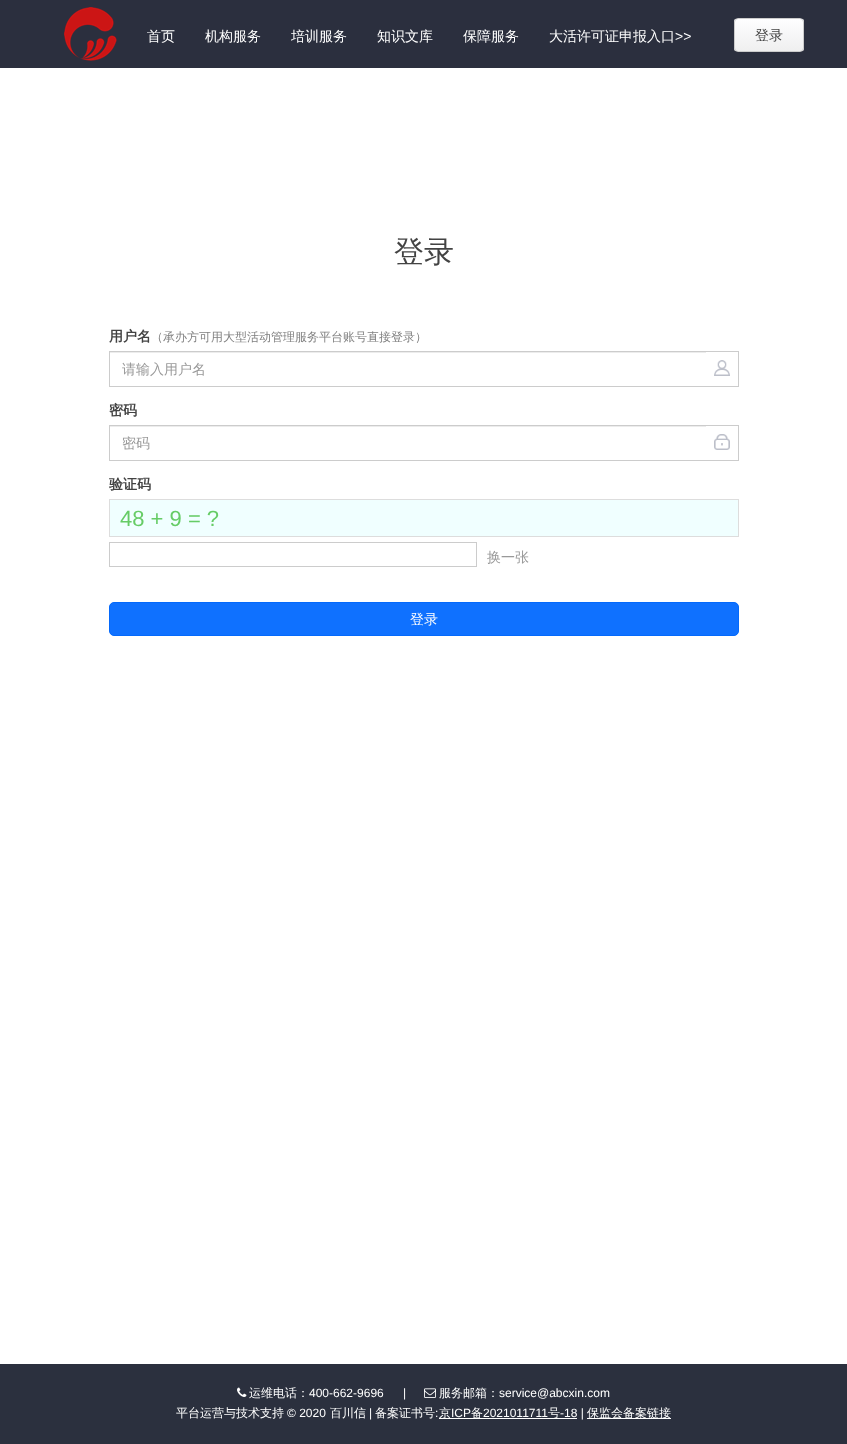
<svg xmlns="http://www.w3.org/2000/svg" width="847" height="1444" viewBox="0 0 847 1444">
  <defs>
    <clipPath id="clip1"><rect x="734" y="18" width="70" height="34" rx="4"/></clipPath>
    <linearGradient id="g1" gradientUnits="userSpaceOnUse" x1="769" y1="19" x2="769" y2="51"><stop offset="0" stop-color="rgb(254,254,255)"/><stop offset="1" stop-color="rgb(239,239,239)"/></linearGradient>
  </defs>
  <rect width="100%" height="100%" fill="rgb(255,255,255)"/>
  <rect x="0" y="0" width="847" height="68" fill="rgb(43,47,62)"/>
  <image x="64" y="7" width="53" height="54" href="pic1.png"/>
  <g font-family="WenQuanYi Zen Hei" font-size="14" font-weight="500" fill="rgb(255,255,255)">
    <text x="147" y="41">首页</text>
    <text x="205" y="41">机构服务</text>
    <text x="291" y="41">培训服务</text>
    <text x="377" y="41">知识文库</text>
    <text x="463" y="41">保障服务</text>
    <text x="549" y="41">大活许可证申报入口</text>
  </g>
  <text x="675" y="41" font-family="Liberation Sans" font-size="14" fill="rgb(255,255,255)">&gt;&gt;</text>
  <g clip-path="url(#clip1)">
    <rect x="734" y="19" width="70" height="32" fill="url(#g1)"/>
  </g>
  <rect x="734.5" y="18.5" width="69" height="33" rx="3.5" fill="none" stroke="rgb(204,204,204)"/>
  <text x="755" y="40" font-family="WenQuanYi Zen Hei" font-size="14" font-weight="500" fill="rgb(67,67,67)">登录</text>
  <text x="394" y="262" font-family="WenQuanYi Zen Hei" font-size="30" font-weight="500" fill="rgb(67,67,67)">登录</text>
  <text x="109" y="341" font-family="WenQuanYi Zen Hei" font-size="14" font-weight="bold" fill="rgb(67,67,67)">用户名</text>
  <text x="151" y="341" font-family="WenQuanYi Zen Hei" font-size="12" font-weight="500" fill="rgb(128,128,128)">（承办方可用大型活动管理服务平台账号直接登录）</text>
  <rect x="109" y="351" width="630" height="1" fill="rgb(204,204,204)"/>
  <rect x="738" y="351" width="1" height="36" fill="rgb(204,204,204)"/>
  <rect x="109" y="386" width="630" height="1" fill="rgb(204,204,204)"/>
  <image x="714" y="360" width="16" height="16" href="pic2.png"/>
  <rect x="110" y="352" width="596" height="1" fill="rgb(236,236,236)"/>
  <rect x="109" y="351" width="1" height="36" fill="rgb(204,204,204)"/>
  <text x="122" y="374" font-family="WenQuanYi Zen Hei" font-size="14" font-weight="500" fill="rgb(153,153,153)">请输入用户名</text>
  <text x="109" y="415" font-family="WenQuanYi Zen Hei" font-size="14" font-weight="bold" fill="rgb(67,67,67)">密码</text>
  <rect x="109" y="425" width="630" height="1" fill="rgb(204,204,204)"/>
  <rect x="738" y="425" width="1" height="36" fill="rgb(204,204,204)"/>
  <rect x="109" y="460" width="630" height="1" fill="rgb(204,204,204)"/>
  <image x="714" y="434" width="16" height="16" href="pic3.png"/>
  <rect x="110" y="426" width="596" height="1" fill="rgb(236,236,236)"/>
  <rect x="109" y="425" width="1" height="36" fill="rgb(204,204,204)"/>
  <text x="122" y="448" font-family="WenQuanYi Zen Hei" font-size="14" font-weight="500" fill="rgb(153,153,153)">密码</text>
  <text x="109" y="489" font-family="WenQuanYi Zen Hei" font-size="14" font-weight="bold" fill="rgb(67,67,67)">验证码</text>
  <rect x="109.5" y="499.5" width="629" height="37" fill="rgb(240,255,255)" stroke="rgb(221,221,221)"/>
  <text x="120" y="526" font-family="Liberation Sans" font-size="22" fill="rgb(102,204,102)">48 + 9 = ?</text>
  <rect x="109.5" y="542.5" width="367" height="24" fill="none" stroke="rgb(204,204,204)"/>
  <text x="487" y="562" font-family="WenQuanYi Zen Hei" font-size="14" font-weight="500" fill="rgb(153,153,153)">换一张</text>
  <rect x="109.5" y="602.5" width="629" height="33" rx="4.5" fill="rgb(15,113,255)" stroke="rgb(4,105,251)"/>
  <text x="410" y="624" font-family="WenQuanYi Zen Hei" font-size="14" font-weight="500" fill="rgb(255,255,255)">登录</text>
  <rect x="0" y="1364" width="847" height="80" fill="rgb(43,48,62)"/>
  <image x="237" y="1387" width="10" height="10" href="pic4.png"/>
  <text x="249" y="1397" font-family="WenQuanYi Zen Hei" font-size="12" font-weight="500" fill="rgb(255,255,255)">运维电话：</text>
  <g font-family="Liberation Sans" font-size="12" fill="rgb(255,255,255)">
    <text x="309" y="1397">400-662-9696</text>
    <text x="403" y="1397">|</text>
  </g>
  <image x="424" y="1388" width="12" height="10" href="pic5.png"/>
  <text x="439" y="1397" font-family="WenQuanYi Zen Hei" font-size="12" font-weight="500" fill="rgb(255,255,255)">服务邮箱：</text>
  <text x="499" y="1397" font-family="Liberation Sans" font-size="12" fill="rgb(255,255,255)">service@abcxin.com</text>
  <text x="176" y="1417" font-family="WenQuanYi Zen Hei" font-size="12" font-weight="500" fill="rgb(255,255,255)">平台运营与技术支持</text>
  <text x="287" y="1417" font-family="Liberation Sans" font-size="12" fill="rgb(255,255,255)">© 2020</text>
  <text x="330" y="1417" font-family="WenQuanYi Zen Hei" font-size="12" font-weight="500" fill="rgb(255,255,255)">百川信</text>
  <text x="369" y="1417" font-family="Liberation Sans" font-size="12" fill="rgb(255,255,255)">|</text>
  <text x="375" y="1417" font-family="WenQuanYi Zen Hei" font-size="12" font-weight="500" fill="rgb(255,255,255)">备案证书号</text>
  <text x="435" y="1417" font-family="Liberation Sans" font-size="12" fill="rgb(255,255,255)">:</text>
  <rect x="439" y="1418" width="138" height="1" fill="rgb(255,255,255)"/>
  <text x="439" y="1417" font-family="WenQuanYi Zen Hei" font-size="12" font-weight="500" fill="rgb(255,255,255)">京</text>
  <text x="451" y="1417" font-family="Liberation Sans" font-size="12" fill="rgb(255,255,255)">ICP</text>
  <text x="471" y="1417" font-family="WenQuanYi Zen Hei" font-size="12" font-weight="500" fill="rgb(255,255,255)">备</text>
  <text x="483" y="1417" font-family="Liberation Sans" font-size="12" fill="rgb(255,255,255)">2021011711</text>
  <text x="548" y="1417" font-family="WenQuanYi Zen Hei" font-size="12" font-weight="500" fill="rgb(255,255,255)">号</text>
  <text x="560" y="1417" font-family="Liberation Sans" font-size="12" fill="rgb(255,255,255)">-18 |</text>
  <rect x="587" y="1418" width="84" height="1" fill="rgb(255,255,255)"/>
  <text x="587" y="1417" font-family="WenQuanYi Zen Hei" font-size="12" font-weight="500" fill="rgb(255,255,255)">保监会备案链接</text>
</svg>
